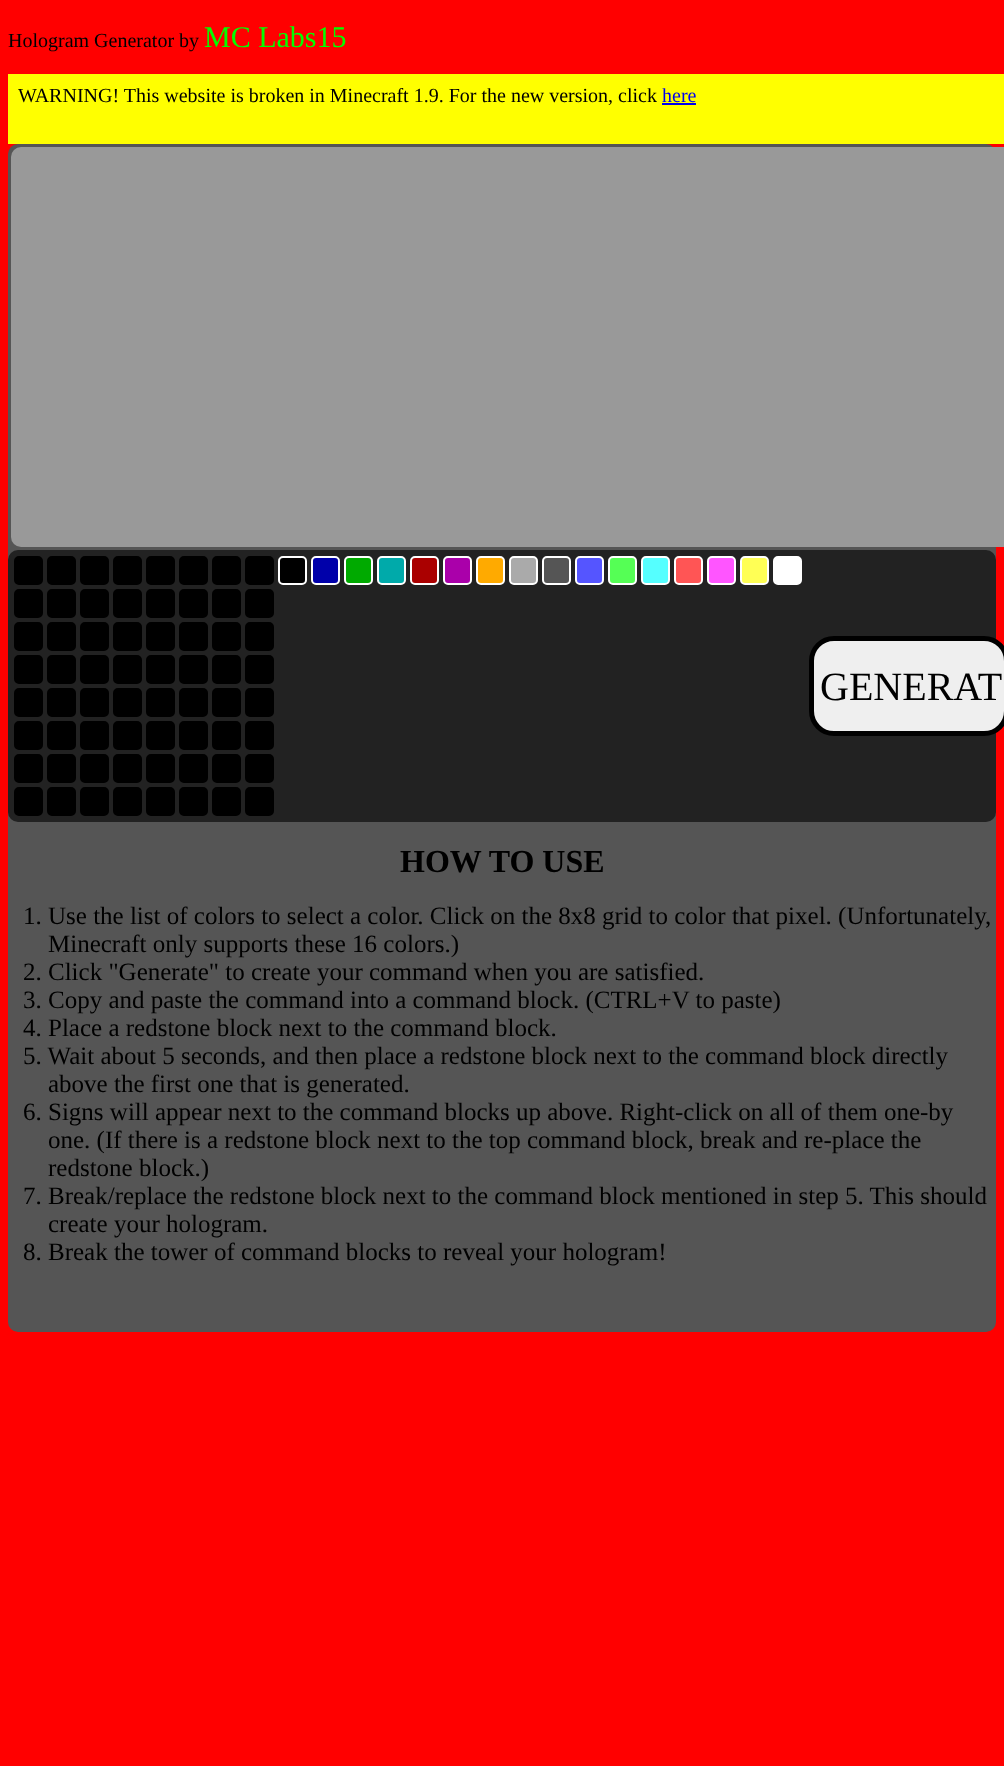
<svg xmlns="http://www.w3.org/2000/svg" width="1004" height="1766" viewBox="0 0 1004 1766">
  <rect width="100%" height="100%" fill="rgb(255,0,0)"/>
  <text x="8" y="47" font-family="Liberation Serif" font-size="20" fill="rgb(0,0,0)">Hologram Generator by</text>
  <text x="204" y="47" font-family="Liberation Serif" font-size="30" fill="rgb(0,255,0)">MC Labs15</text>
  <rect x="8" y="74" width="996" height="70" fill="rgb(255,255,0)"/>
  <text x="18" y="102" font-family="Liberation Serif" font-size="20" fill="rgb(0,0,0)">WARNING! This website is broken in Minecraft 1.9. For the new version, click</text>
  <text x="662" y="102" font-family="Liberation Serif" font-size="20" fill="rgb(0,0,238)">here</text>
  <rect x="662" y="103" width="34" height="2" fill="rgb(0,0,238)"/>
  <rect x="8" y="144" width="988" height="1188" rx="10" fill="rgb(85,85,85)"/>
  <rect x="11" y="147" width="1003" height="400" rx="10" fill="rgb(153,153,153)"/>
  <rect x="8" y="550" width="988" height="272" rx="10" fill="rgb(34,34,34)"/>
  <rect x="15" y="557" width="27" height="27" rx="4" fill="rgb(0,0,0)" stroke="rgb(0,0,0)" stroke-width="2"/>
  <rect x="48" y="557" width="27" height="27" rx="4" fill="rgb(0,0,0)" stroke="rgb(0,0,0)" stroke-width="2"/>
  <rect x="81" y="557" width="27" height="27" rx="4" fill="rgb(0,0,0)" stroke="rgb(0,0,0)" stroke-width="2"/>
  <rect x="114" y="557" width="27" height="27" rx="4" fill="rgb(0,0,0)" stroke="rgb(0,0,0)" stroke-width="2"/>
  <rect x="147" y="557" width="27" height="27" rx="4" fill="rgb(0,0,0)" stroke="rgb(0,0,0)" stroke-width="2"/>
  <rect x="180" y="557" width="27" height="27" rx="4" fill="rgb(0,0,0)" stroke="rgb(0,0,0)" stroke-width="2"/>
  <rect x="213" y="557" width="27" height="27" rx="4" fill="rgb(0,0,0)" stroke="rgb(0,0,0)" stroke-width="2"/>
  <rect x="246" y="557" width="27" height="27" rx="4" fill="rgb(0,0,0)" stroke="rgb(0,0,0)" stroke-width="2"/>
  <rect x="279" y="557" width="27" height="27" rx="4" fill="rgb(0,0,0)" stroke="rgb(255,255,255)" stroke-width="2"/>
  <rect x="312" y="557" width="27" height="27" rx="4" fill="rgb(0,0,170)" stroke="rgb(255,255,255)" stroke-width="2"/>
  <rect x="345" y="557" width="27" height="27" rx="4" fill="rgb(0,170,0)" stroke="rgb(255,255,255)" stroke-width="2"/>
  <rect x="378" y="557" width="27" height="27" rx="4" fill="rgb(0,170,170)" stroke="rgb(255,255,255)" stroke-width="2"/>
  <rect x="411" y="557" width="27" height="27" rx="4" fill="rgb(170,0,0)" stroke="rgb(255,255,255)" stroke-width="2"/>
  <rect x="444" y="557" width="27" height="27" rx="4" fill="rgb(170,0,170)" stroke="rgb(255,255,255)" stroke-width="2"/>
  <rect x="477" y="557" width="27" height="27" rx="4" fill="rgb(255,170,0)" stroke="rgb(255,255,255)" stroke-width="2"/>
  <rect x="510" y="557" width="27" height="27" rx="4" fill="rgb(170,170,170)" stroke="rgb(255,255,255)" stroke-width="2"/>
  <rect x="543" y="557" width="27" height="27" rx="4" fill="rgb(85,85,85)" stroke="rgb(255,255,255)" stroke-width="2"/>
  <rect x="576" y="557" width="27" height="27" rx="4" fill="rgb(85,85,255)" stroke="rgb(255,255,255)" stroke-width="2"/>
  <rect x="609" y="557" width="27" height="27" rx="4" fill="rgb(85,255,85)" stroke="rgb(255,255,255)" stroke-width="2"/>
  <rect x="642" y="557" width="27" height="27" rx="4" fill="rgb(85,255,255)" stroke="rgb(255,255,255)" stroke-width="2"/>
  <rect x="675" y="557" width="27" height="27" rx="4" fill="rgb(255,85,85)" stroke="rgb(255,255,255)" stroke-width="2"/>
  <rect x="708" y="557" width="27" height="27" rx="4" fill="rgb(255,85,255)" stroke="rgb(255,255,255)" stroke-width="2"/>
  <rect x="741" y="557" width="27" height="27" rx="4" fill="rgb(255,255,85)" stroke="rgb(255,255,255)" stroke-width="2"/>
  <rect x="774" y="557" width="27" height="27" rx="4" fill="rgb(255,255,255)" stroke="rgb(255,255,255)" stroke-width="2"/>
  <rect x="15" y="590" width="27" height="27" rx="4" fill="rgb(0,0,0)" stroke="rgb(0,0,0)" stroke-width="2"/>
  <rect x="48" y="590" width="27" height="27" rx="4" fill="rgb(0,0,0)" stroke="rgb(0,0,0)" stroke-width="2"/>
  <rect x="81" y="590" width="27" height="27" rx="4" fill="rgb(0,0,0)" stroke="rgb(0,0,0)" stroke-width="2"/>
  <rect x="114" y="590" width="27" height="27" rx="4" fill="rgb(0,0,0)" stroke="rgb(0,0,0)" stroke-width="2"/>
  <rect x="147" y="590" width="27" height="27" rx="4" fill="rgb(0,0,0)" stroke="rgb(0,0,0)" stroke-width="2"/>
  <rect x="180" y="590" width="27" height="27" rx="4" fill="rgb(0,0,0)" stroke="rgb(0,0,0)" stroke-width="2"/>
  <rect x="213" y="590" width="27" height="27" rx="4" fill="rgb(0,0,0)" stroke="rgb(0,0,0)" stroke-width="2"/>
  <rect x="246" y="590" width="27" height="27" rx="4" fill="rgb(0,0,0)" stroke="rgb(0,0,0)" stroke-width="2"/>
  <rect x="15" y="623" width="27" height="27" rx="4" fill="rgb(0,0,0)" stroke="rgb(0,0,0)" stroke-width="2"/>
  <rect x="48" y="623" width="27" height="27" rx="4" fill="rgb(0,0,0)" stroke="rgb(0,0,0)" stroke-width="2"/>
  <rect x="81" y="623" width="27" height="27" rx="4" fill="rgb(0,0,0)" stroke="rgb(0,0,0)" stroke-width="2"/>
  <rect x="114" y="623" width="27" height="27" rx="4" fill="rgb(0,0,0)" stroke="rgb(0,0,0)" stroke-width="2"/>
  <rect x="147" y="623" width="27" height="27" rx="4" fill="rgb(0,0,0)" stroke="rgb(0,0,0)" stroke-width="2"/>
  <rect x="180" y="623" width="27" height="27" rx="4" fill="rgb(0,0,0)" stroke="rgb(0,0,0)" stroke-width="2"/>
  <rect x="213" y="623" width="27" height="27" rx="4" fill="rgb(0,0,0)" stroke="rgb(0,0,0)" stroke-width="2"/>
  <rect x="246" y="623" width="27" height="27" rx="4" fill="rgb(0,0,0)" stroke="rgb(0,0,0)" stroke-width="2"/>
  <rect x="15" y="656" width="27" height="27" rx="4" fill="rgb(0,0,0)" stroke="rgb(0,0,0)" stroke-width="2"/>
  <rect x="48" y="656" width="27" height="27" rx="4" fill="rgb(0,0,0)" stroke="rgb(0,0,0)" stroke-width="2"/>
  <rect x="81" y="656" width="27" height="27" rx="4" fill="rgb(0,0,0)" stroke="rgb(0,0,0)" stroke-width="2"/>
  <rect x="114" y="656" width="27" height="27" rx="4" fill="rgb(0,0,0)" stroke="rgb(0,0,0)" stroke-width="2"/>
  <rect x="147" y="656" width="27" height="27" rx="4" fill="rgb(0,0,0)" stroke="rgb(0,0,0)" stroke-width="2"/>
  <rect x="180" y="656" width="27" height="27" rx="4" fill="rgb(0,0,0)" stroke="rgb(0,0,0)" stroke-width="2"/>
  <rect x="213" y="656" width="27" height="27" rx="4" fill="rgb(0,0,0)" stroke="rgb(0,0,0)" stroke-width="2"/>
  <rect x="246" y="656" width="27" height="27" rx="4" fill="rgb(0,0,0)" stroke="rgb(0,0,0)" stroke-width="2"/>
  <rect x="15" y="689" width="27" height="27" rx="4" fill="rgb(0,0,0)" stroke="rgb(0,0,0)" stroke-width="2"/>
  <rect x="48" y="689" width="27" height="27" rx="4" fill="rgb(0,0,0)" stroke="rgb(0,0,0)" stroke-width="2"/>
  <rect x="81" y="689" width="27" height="27" rx="4" fill="rgb(0,0,0)" stroke="rgb(0,0,0)" stroke-width="2"/>
  <rect x="114" y="689" width="27" height="27" rx="4" fill="rgb(0,0,0)" stroke="rgb(0,0,0)" stroke-width="2"/>
  <rect x="147" y="689" width="27" height="27" rx="4" fill="rgb(0,0,0)" stroke="rgb(0,0,0)" stroke-width="2"/>
  <rect x="180" y="689" width="27" height="27" rx="4" fill="rgb(0,0,0)" stroke="rgb(0,0,0)" stroke-width="2"/>
  <rect x="213" y="689" width="27" height="27" rx="4" fill="rgb(0,0,0)" stroke="rgb(0,0,0)" stroke-width="2"/>
  <rect x="246" y="689" width="27" height="27" rx="4" fill="rgb(0,0,0)" stroke="rgb(0,0,0)" stroke-width="2"/>
  <rect x="15" y="722" width="27" height="27" rx="4" fill="rgb(0,0,0)" stroke="rgb(0,0,0)" stroke-width="2"/>
  <rect x="48" y="722" width="27" height="27" rx="4" fill="rgb(0,0,0)" stroke="rgb(0,0,0)" stroke-width="2"/>
  <rect x="81" y="722" width="27" height="27" rx="4" fill="rgb(0,0,0)" stroke="rgb(0,0,0)" stroke-width="2"/>
  <rect x="114" y="722" width="27" height="27" rx="4" fill="rgb(0,0,0)" stroke="rgb(0,0,0)" stroke-width="2"/>
  <rect x="147" y="722" width="27" height="27" rx="4" fill="rgb(0,0,0)" stroke="rgb(0,0,0)" stroke-width="2"/>
  <rect x="180" y="722" width="27" height="27" rx="4" fill="rgb(0,0,0)" stroke="rgb(0,0,0)" stroke-width="2"/>
  <rect x="213" y="722" width="27" height="27" rx="4" fill="rgb(0,0,0)" stroke="rgb(0,0,0)" stroke-width="2"/>
  <rect x="246" y="722" width="27" height="27" rx="4" fill="rgb(0,0,0)" stroke="rgb(0,0,0)" stroke-width="2"/>
  <rect x="15" y="755" width="27" height="27" rx="4" fill="rgb(0,0,0)" stroke="rgb(0,0,0)" stroke-width="2"/>
  <rect x="48" y="755" width="27" height="27" rx="4" fill="rgb(0,0,0)" stroke="rgb(0,0,0)" stroke-width="2"/>
  <rect x="81" y="755" width="27" height="27" rx="4" fill="rgb(0,0,0)" stroke="rgb(0,0,0)" stroke-width="2"/>
  <rect x="114" y="755" width="27" height="27" rx="4" fill="rgb(0,0,0)" stroke="rgb(0,0,0)" stroke-width="2"/>
  <rect x="147" y="755" width="27" height="27" rx="4" fill="rgb(0,0,0)" stroke="rgb(0,0,0)" stroke-width="2"/>
  <rect x="180" y="755" width="27" height="27" rx="4" fill="rgb(0,0,0)" stroke="rgb(0,0,0)" stroke-width="2"/>
  <rect x="213" y="755" width="27" height="27" rx="4" fill="rgb(0,0,0)" stroke="rgb(0,0,0)" stroke-width="2"/>
  <rect x="246" y="755" width="27" height="27" rx="4" fill="rgb(0,0,0)" stroke="rgb(0,0,0)" stroke-width="2"/>
  <rect x="15" y="788" width="27" height="27" rx="4" fill="rgb(0,0,0)" stroke="rgb(0,0,0)" stroke-width="2"/>
  <rect x="48" y="788" width="27" height="27" rx="4" fill="rgb(0,0,0)" stroke="rgb(0,0,0)" stroke-width="2"/>
  <rect x="81" y="788" width="27" height="27" rx="4" fill="rgb(0,0,0)" stroke="rgb(0,0,0)" stroke-width="2"/>
  <rect x="114" y="788" width="27" height="27" rx="4" fill="rgb(0,0,0)" stroke="rgb(0,0,0)" stroke-width="2"/>
  <rect x="147" y="788" width="27" height="27" rx="4" fill="rgb(0,0,0)" stroke="rgb(0,0,0)" stroke-width="2"/>
  <rect x="180" y="788" width="27" height="27" rx="4" fill="rgb(0,0,0)" stroke="rgb(0,0,0)" stroke-width="2"/>
  <rect x="213" y="788" width="27" height="27" rx="4" fill="rgb(0,0,0)" stroke="rgb(0,0,0)" stroke-width="2"/>
  <rect x="246" y="788" width="27" height="27" rx="4" fill="rgb(0,0,0)" stroke="rgb(0,0,0)" stroke-width="2"/>
  <rect x="811.5" y="638.5" width="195" height="95" rx="22.5" fill="rgb(239,239,239)" stroke="rgb(0,0,0)" stroke-width="5"/>
  <text x="820" y="700" font-family="Liberation Serif" font-size="40" fill="rgb(0,0,0)">GENERAT</text>
  <text x="400" y="872" font-family="Liberation Serif" font-size="32" font-weight="bold" fill="rgb(0,0,0)">HOW TO USE</text>
  <g font-family="Liberation Serif" font-size="25" fill="rgb(0,0,0)">
    <text x="23" y="924">1. Use the list of colors to select a color. Click on the 8x8 grid to color that pixel. (Unfortunately,</text>
    <text x="48" y="952">Minecraft only supports these 16 colors.)</text>
    <text>
      <tspan x="23" y="980">2. Click "Generate" to create your command when you are satisfied.</tspan>
      <tspan x="23" y="1008">3. Copy and paste the command into a command block. (CTRL+V to paste)</tspan>
      <tspan x="23" y="1036">4. Place a redstone block next to the command block.</tspan>
      <tspan x="23" y="1064">5. Wait about 5 seconds, and then place a redstone block next to the command block directly</tspan>
    </text>
    <text x="48" y="1092">above the first one that is generated.</text>
    <text x="23" y="1120">6. Signs will appear next to the command blocks up above. Right-click on all of them one-by</text>
    <text>
      <tspan x="48" y="1148">one. (If there is a redstone block next to the top command block, break and re-place the</tspan>
      <tspan x="48" y="1176">redstone block.)</tspan>
    </text>
    <text x="23" y="1204">7. Break/replace the redstone block next to the command block mentioned in step 5. This should</text>
    <text x="48" y="1232">create your hologram.</text>
    <text x="23" y="1260">8. Break the tower of command blocks to reveal your hologram!</text>
  </g>
</svg>
